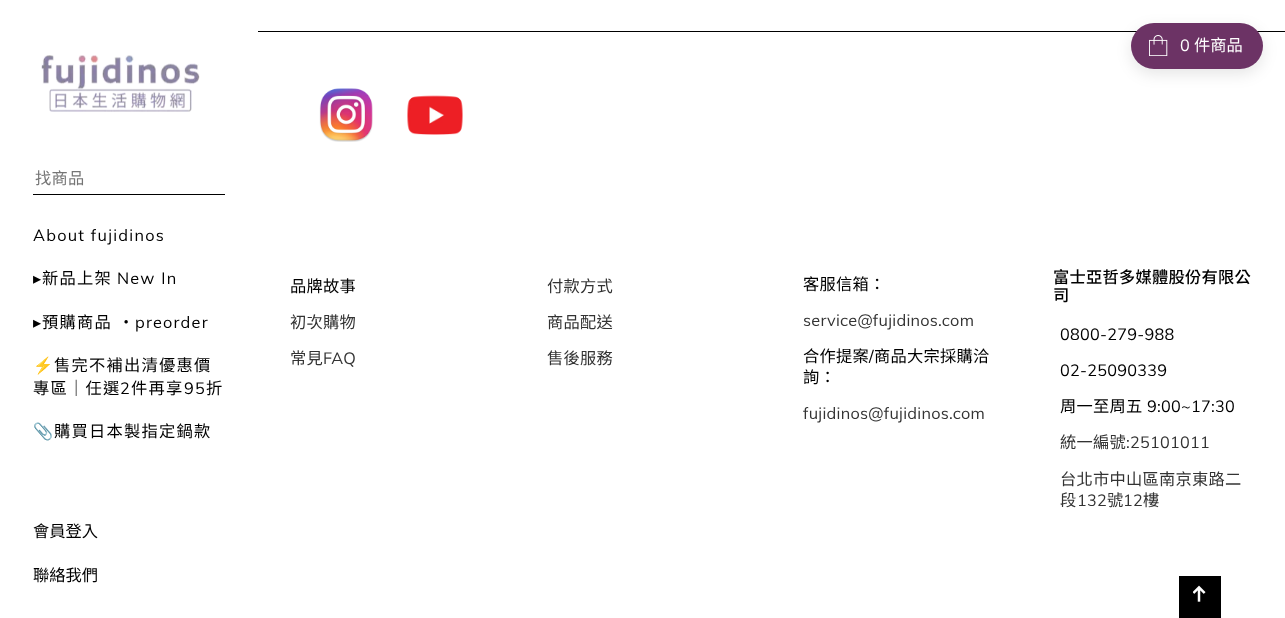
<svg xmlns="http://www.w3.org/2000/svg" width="1285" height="618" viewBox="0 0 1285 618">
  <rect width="100%" height="100%" fill="rgb(255,255,255)"/>
  <rect x="258" y="31" width="1027" height="1" fill="rgb(0,0,0)"/>
  <rect x="1131" y="28" width="132" height="46" rx="23" fill="rgba(0,0,0,0.1)" filter="blur(7.5px)"/>
  <rect x="1131" y="23" width="132" height="46" rx="23" fill="rgb(108,51,101)"/>
  <image x="1149" y="35" width="19" height="21" href="pic1.png"/>
  <text x="1180" y="51" font-family="Muli" font-size="16.25" fill="rgb(255,255,255)">0</text>
  <text x="1194" y="51" font-family="Noto Sans TC" font-size="16.25" fill="rgb(255,255,255)">件商品</text>
  <image x="41" y="55" width="159" height="57" href="pic2.png"/>
  <rect x="33" y="194" width="192" height="1" fill="rgb(0,0,0)"/>
  <text x="35" y="184" font-family="Noto Sans TC" font-size="16.25" letter-spacing="0.25" fill="rgb(117,117,117)">找商品</text>
  <text x="33" y="241" font-family="Muli" font-size="16.25" letter-spacing="1.25" fill="rgb(0,0,0)">About fujidinos</text>
  <text x="33" y="284" font-family="DejaVu Sans" font-size="16.25" letter-spacing="1.25" fill="rgb(0,0,0)">▸</text>
  <text x="42" y="284" font-family="Noto Sans TC" font-size="16.25" letter-spacing="1.25" fill="rgb(0,0,0)">新品上架</text>
  <text x="117" y="284" font-family="Muli" font-size="16.25" letter-spacing="1.25" fill="rgb(0,0,0)">New In</text>
  <text x="33" y="328" font-family="DejaVu Sans" font-size="16.25" letter-spacing="1.25" fill="rgb(0,0,0)">▸</text>
  <text x="42" y="328" word-spacing="1" font-family="Noto Sans TC" font-size="16.25" letter-spacing="1.25" fill="rgb(0,0,0)">預購商品 ・</text>
  <text x="135" y="328" font-family="Muli" font-size="16.25" letter-spacing="1.25" fill="rgb(0,0,0)">preorder</text>
  <text x="33" y="371" font-family="Noto Color Emoji" font-size="16.25" letter-spacing="1.25" fill="rgb(0,0,0)">⚡</text>
  <g font-family="Noto Sans TC" font-size="16.25" letter-spacing="1.25" fill="rgb(0,0,0)">
    <text x="54" y="371">售完不補出清優惠價</text>
    <text x="33" y="394">專區｜任選</text>
  </g>
  <text x="120" y="394" font-family="Muli" font-size="16.25" letter-spacing="1.25" fill="rgb(0,0,0)">2</text>
  <text x="131" y="394" font-family="Noto Sans TC" font-size="16.25" letter-spacing="1.25" fill="rgb(0,0,0)">件再享</text>
  <text x="184" y="394" font-family="Muli" font-size="16.25" letter-spacing="1.25" fill="rgb(0,0,0)">95</text>
  <text x="206" y="394" font-family="Noto Sans TC" font-size="16.25" letter-spacing="1.25" fill="rgb(0,0,0)">折</text>
  <text x="33" y="437" font-family="Noto Color Emoji" font-size="16.25" letter-spacing="1.25" fill="rgb(0,0,0)">📎</text>
  <text x="54" y="437" font-family="Noto Sans TC" font-size="16.25" letter-spacing="1.25" fill="rgb(0,0,0)">購買日本製指定鍋款</text>
  <g font-family="Noto Sans TC" font-size="16.25" fill="rgb(0,0,0)">
    <text x="33" y="537">會員登入</text>
    <text x="33" y="581">聯絡我們</text>
  </g>
  <image x="319" y="88" width="54" height="54" href="pic3.png"/>
  <image x="407" y="95" width="56" height="40" href="pic4.png"/>
  <text x="290" y="292" font-family="Noto Sans TC" font-size="16.25" letter-spacing="0.25" fill="rgb(0,0,0)">品牌故事</text>
  <g font-family="Noto Sans TC" font-size="16.25" letter-spacing="0.25" fill="rgb(51,51,51)">
    <text x="290" y="328">初次購物</text>
    <text x="290" y="364">常見</text>
  </g>
  <text x="323" y="364" font-family="Muli" font-size="16.25" letter-spacing="0.25" fill="rgb(51,51,51)">FAQ</text>
  <g font-family="Noto Sans TC" font-size="16.25" letter-spacing="0.25" fill="rgb(51,51,51)">
    <text x="547" y="292">付款方式</text>
    <text x="547" y="328">商品配送</text>
    <text x="547" y="364">售後服務</text>
  </g>
  <text x="803" y="290" font-family="Noto Sans TC" font-size="16.25" letter-spacing="0.25" fill="rgb(0,0,0)">客服信箱：</text>
  <text x="803" y="326" font-family="Muli" font-size="16.25" letter-spacing="0.25" fill="rgb(51,51,51)">service@fujidinos.com</text>
  <text x="803" y="362" font-family="Noto Sans TC" font-size="16.25" letter-spacing="0.25" fill="rgb(0,0,0)">合作提案</text>
  <text x="869" y="362" font-family="Muli" font-size="16.25" letter-spacing="0.25" fill="rgb(0,0,0)">/</text>
  <g font-family="Noto Sans TC" font-size="16.25" letter-spacing="0.25" fill="rgb(0,0,0)">
    <text x="874" y="362">商品大宗採購洽</text>
    <text x="803" y="383">詢：</text>
  </g>
  <text x="803" y="419" font-family="Muli" font-size="16.25" letter-spacing="0.25" fill="rgb(51,51,51)">fujidinos@fujidinos.com</text>
  <g font-family="Noto Sans TC" font-size="16.25" font-weight="500" letter-spacing="0.25" fill="rgb(0,0,0)">
    <text>
      <tspan x="1053" y="283">富士亞哲多媒體股份有限公</tspan>
      <tspan x="1053" y="301">司</tspan>
    </text>
  </g>
  <g font-family="Muli" font-size="16.25" letter-spacing="0.25" fill="rgb(0,0,0)">
    <text x="1060" y="340">0800-279-988</text>
    <text x="1060" y="376">02-25090339</text>
  </g>
  <text x="1060" y="412" font-family="Noto Sans TC" font-size="16.25" letter-spacing="0.25" fill="rgb(0,0,0)">周一至周五</text>
  <text x="1147" y="412" font-family="Muli" font-size="16.25" letter-spacing="0.25" fill="rgb(0,0,0)">9:00~17:30</text>
  <text x="1060" y="448" font-family="Noto Sans TC" font-size="16.25" letter-spacing="0.25" fill="rgb(51,51,51)">統一編號</text>
  <text x="1126" y="448" font-family="Muli" font-size="16.25" letter-spacing="0.25" fill="rgb(51,51,51)">:25101011</text>
  <g font-family="Noto Sans TC" font-size="16.25" letter-spacing="0.25" fill="rgb(51,51,51)">
    <text>
      <tspan x="1060" y="485">台北市中山區南京東路二</tspan>
      <tspan x="1060" y="506">段</tspan>
    </text>
  </g>
  <text x="1077" y="506" font-family="Muli" font-size="16.25" letter-spacing="0.25" fill="rgb(51,51,51)">132</text>
  <text x="1107" y="506" font-family="Noto Sans TC" font-size="16.25" letter-spacing="0.25" fill="rgb(51,51,51)">號</text>
  <text x="1123" y="506" font-family="Muli" font-size="16.25" letter-spacing="0.25" fill="rgb(51,51,51)">12</text>
  <text x="1143" y="506" font-family="Noto Sans TC" font-size="16.25" letter-spacing="0.25" fill="rgb(51,51,51)">樓</text>
  <rect x="1179" y="576" width="42" height="42" fill="rgb(0,0,0)"/>
  <image x="1193" y="585" width="13" height="17" href="pic5.png"/>
</svg>
